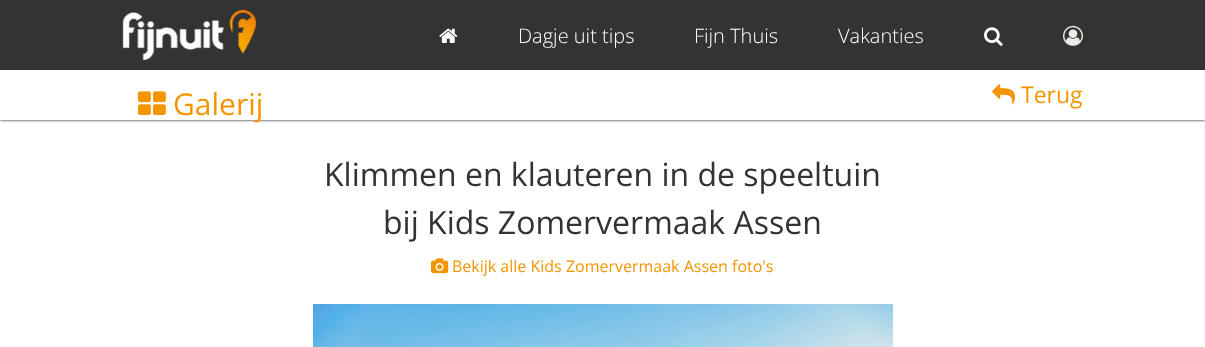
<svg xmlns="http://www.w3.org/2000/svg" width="1205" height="347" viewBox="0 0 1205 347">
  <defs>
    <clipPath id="clip1"><rect x="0" y="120" width="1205" height="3"/></clipPath>
  </defs>
  <rect width="100%" height="100%" fill="rgb(255,255,255)"/>
  <g clip-path="url(#clip1)">
    <rect x="0" y="70" width="1205" height="50" fill="rgb(0,0,0)" filter="blur(1.5px)"/>
  </g>
  <rect x="0" y="0" width="1205" height="70" fill="rgb(51,51,51)"/>
  <image x="122" y="10" width="134" height="50" href="pic1.png"/>
  <image x="439" y="28" width="19" height="15" href="pic2.png"/>
  <g font-family="Open Sans" font-size="20" font-weight="300" fill="rgb(255,255,255)">
    <text x="518" y="43">Dagje uit tips</text>
    <text x="694" y="43">Fijn Thuis</text>
    <text x="838" y="43">Vakanties</text>
  </g>
  <image x="984" y="27" width="19" height="19" href="pic3.png"/>
  <image x="1063" y="25" width="20" height="21" href="pic4.png"/>
  <image x="138" y="91" width="28" height="24" href="pic5.png"/>
  <text x="173" y="115" font-family="Open Sans" font-size="30" fill="rgb(244,149,0)">Galerij</text>
  <image x="992" y="84" width="23" height="21" href="pic6.png"/>
  <text x="1021" y="103" font-family="Open Sans" font-size="23" fill="rgb(244,149,0)">Terug</text>
  <g font-family="Open Sans" font-size="32" fill="rgb(51,51,51)">
    <text x="324" y="186">Klimmen en klauteren in de speeltuin</text>
    <text x="383" y="234">bij Kids Zomervermaak Assen</text>
  </g>
  <image x="431" y="258" width="18" height="16" href="pic7.png"/>
  <text x="452" y="272" font-family="Open Sans" font-size="16" fill="rgb(244,149,0)">Bekijk alle Kids Zomervermaak Assen foto's</text>
  <image x="313" y="304" width="580" height="43" href="pic8.png"/>
</svg>
